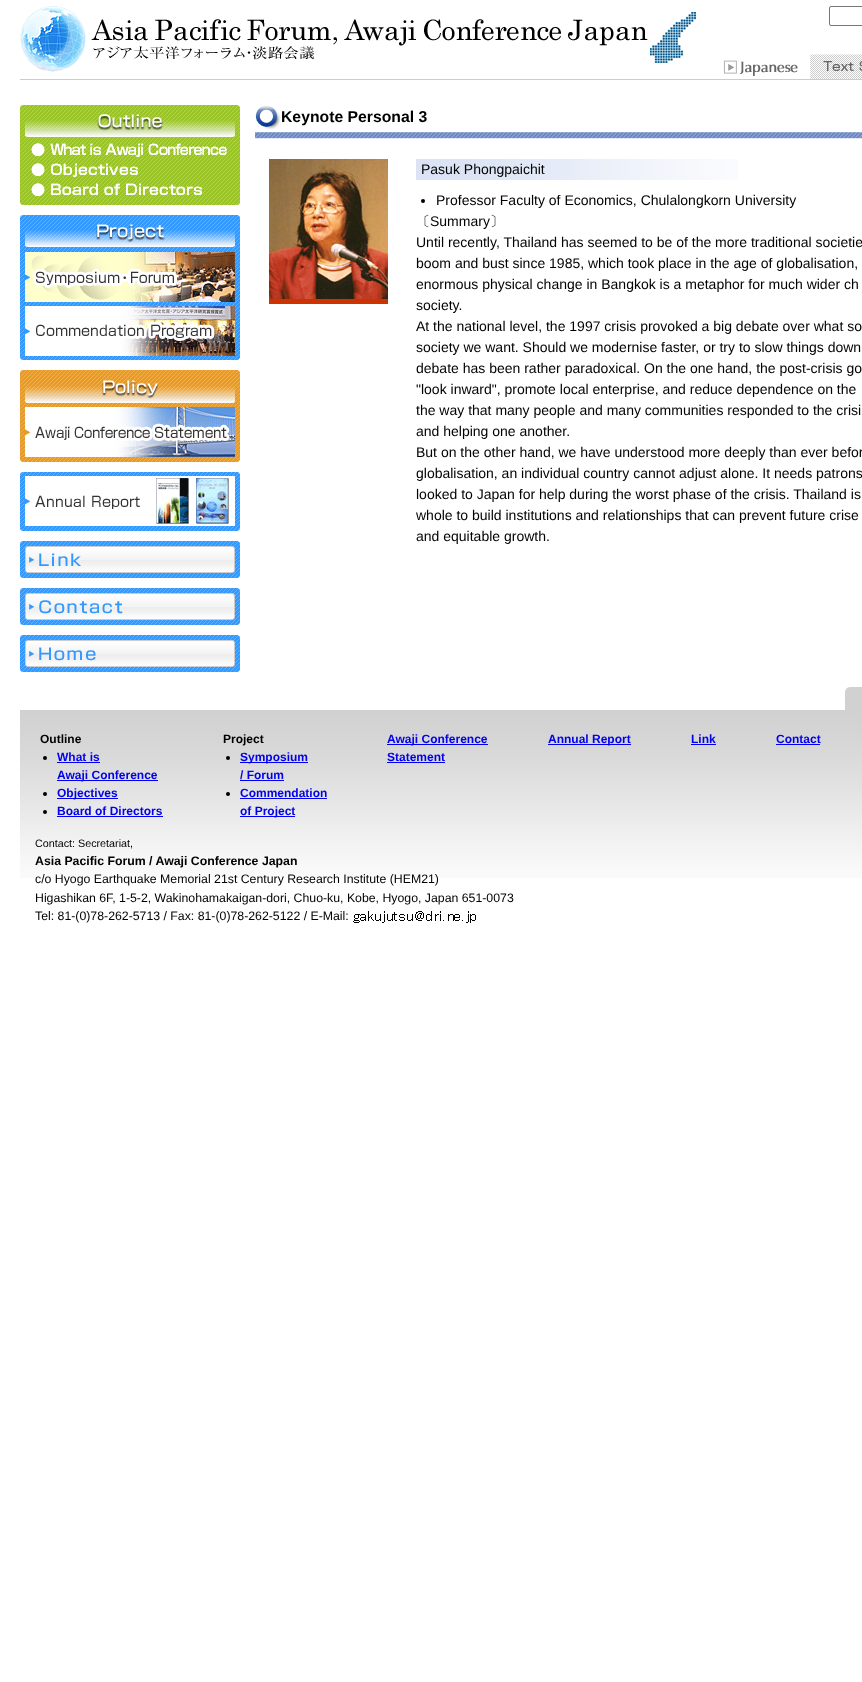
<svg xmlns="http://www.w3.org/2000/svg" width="862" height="1682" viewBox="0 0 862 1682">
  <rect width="100%" height="100%" fill="rgb(255,255,255)"/>
  <rect x="20" y="79" width="842" height="1" fill="rgb(204,204,204)"/>
  <image x="20" y="6" width="676" height="66" href="pic1.png"/>
  <rect x="829.5" y="6.5" width="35" height="19" rx="1.5" fill="none" stroke="rgb(118,118,118)"/>
  <image x="723" y="60" width="75" height="16" href="pic2.png"/>
  <image x="810" y="54" width="52" height="25" href="pic3.png"/>
  <image x="20" y="105" width="220" height="35" href="pic4.png"/>
  <image x="20" y="140" width="220" height="20" href="pic5.png"/>
  <image x="20" y="160" width="220" height="20" href="pic6.png"/>
  <image x="20" y="180" width="220" height="25" href="pic7.png"/>
  <image x="20" y="215" width="220" height="37" href="pic8.png"/>
  <image x="20" y="252" width="220" height="54" href="pic9.png"/>
  <image x="20" y="306" width="220" height="54" href="pic10.png"/>
  <image x="20" y="370" width="220" height="37" href="pic11.png"/>
  <image x="20" y="407" width="220" height="55" href="pic12.png"/>
  <image x="20" y="472" width="220" height="59" href="pic13.png"/>
  <image x="20" y="541" width="220" height="37" href="pic14.png"/>
  <image x="20" y="588" width="220" height="37" href="pic15.png"/>
  <image x="20" y="635" width="220" height="37" href="pic16.png"/>
  <image x="255" y="132" width="607" height="7" href="pic17.png"/>
  <image x="255" y="106" width="26" height="24" href="pic18.png"/>
  <text x="281" y="122" font-family="Liberation Sans" font-size="15.75" font-weight="bold" fill="rgb(0,0,0)">Keynote Personal 3</text>
  <image x="269" y="159" width="119" height="140" href="pic19.png"/>
  <rect x="269" y="299" width="119" height="5" fill="rgb(204,51,0)"/>
  <image x="416" y="159" width="322" height="21" href="pic20.png"/>
  <text x="421" y="174" font-family="Liberation Sans" font-size="14" fill="rgb(0,0,0)">Pasuk Phongpaichit</text>
  <circle cx="423" cy="201" r="2" fill="rgb(0,0,0)"/>
  <text x="436" y="205" font-family="Liberation Sans" font-size="14" fill="rgb(0,0,0)">Professor Faculty of Economics, Chulalongkorn University</text>
  <text x="416" y="226" font-family="WenQuanYi Zen Hei" font-size="14" font-weight="500" fill="rgb(0,0,0)">〔</text>
  <text x="430" y="226" font-family="Liberation Sans" font-size="14" fill="rgb(0,0,0)">Summary</text>
  <text x="490" y="226" font-family="WenQuanYi Zen Hei" font-size="14" font-weight="500" fill="rgb(0,0,0)">〕</text>
  <g font-family="Liberation Sans" font-size="14" fill="rgb(0,0,0)">
    <text>
      <tspan x="416" y="247">Until recently, Thailand has seemed to be of the more traditional societie</tspan>
      <tspan x="416" y="268">boom and bust since 1985, which took place in the age of globalisation,</tspan>
      <tspan x="416" y="289">enormous physical change in Bangkok is a metaphor for much wider ch</tspan>
      <tspan x="416" y="310">society.</tspan>
      <tspan x="416" y="331">At the national level, the 1997 crisis provoked a big debate over what so</tspan>
      <tspan x="416" y="352">society we want. Should we modernise faster, or try to slow things down</tspan>
      <tspan x="416" y="373">debate has been rather paradoxical. On the one hand, the post-crisis go</tspan>
      <tspan x="416" y="394">"look inward", promote local enterprise, and reduce dependence on the</tspan>
      <tspan x="416" y="415">the way that many people and many communities responded to the crisi</tspan>
      <tspan x="416" y="436">and helping one another.</tspan>
      <tspan x="416" y="457">But on the other hand, we have understood more deeply than ever befor</tspan>
      <tspan x="416" y="478">globalisation, an individual country cannot adjust alone. It needs patrons</tspan>
      <tspan x="416" y="499">looked to Japan for help during the worst phase of the crisis. Thailand is</tspan>
      <tspan x="416" y="520">whole to build institutions and relationships that can prevent future crise</tspan>
      <tspan x="416" y="541">and equitable growth.</tspan>
    </text>
  </g>
  <image x="845" y="687" width="17" height="23" href="pic21.png"/>
  <image x="20" y="710" width="842" height="168" href="pic22.png"/>
  <text x="40" y="743" font-family="Liberation Sans" font-size="12" font-weight="bold" fill="rgb(0,0,0)">Outline</text>
  <circle cx="45" cy="758" r="2" fill="rgb(0,0,0)"/>
  <text x="57" y="761" font-family="Liberation Sans" font-size="12" font-weight="bold" fill="rgb(0,0,238)">What is</text>
  <rect x="57" y="762" width="43" height="1" fill="rgb(0,0,238)"/>
  <rect x="57" y="780" width="101" height="1" fill="rgb(0,0,238)"/>
  <text x="57" y="779" font-family="Liberation Sans" font-size="12" font-weight="bold" fill="rgb(0,0,238)">Awaji Conference</text>
  <circle cx="45" cy="794" r="2" fill="rgb(0,0,0)"/>
  <rect x="57" y="798" width="61" height="1" fill="rgb(0,0,238)"/>
  <text x="57" y="797" font-family="Liberation Sans" font-size="12" font-weight="bold" fill="rgb(0,0,238)">Objectives</text>
  <circle cx="45" cy="812" r="2" fill="rgb(0,0,0)"/>
  <text x="57" y="815" font-family="Liberation Sans" font-size="12" font-weight="bold" fill="rgb(0,0,238)">Board of Directors</text>
  <rect x="57" y="816" width="106" height="1" fill="rgb(0,0,238)"/>
  <text x="223" y="743" font-family="Liberation Sans" font-size="12" font-weight="bold" fill="rgb(0,0,0)">Project</text>
  <circle cx="228" cy="758" r="2" fill="rgb(0,0,0)"/>
  <rect x="240" y="762" width="68" height="1" fill="rgb(0,0,238)"/>
  <g font-family="Liberation Sans" font-size="12" font-weight="bold" fill="rgb(0,0,238)">
    <text>
      <tspan x="240" y="761">Symposium</tspan>
      <tspan x="240" y="779">/ Forum</tspan>
    </text>
  </g>
  <rect x="240" y="780" width="44" height="1" fill="rgb(0,0,238)"/>
  <circle cx="228" cy="794" r="2" fill="rgb(0,0,0)"/>
  <text x="240" y="797" font-family="Liberation Sans" font-size="12" font-weight="bold" fill="rgb(0,0,238)">Commendation</text>
  <rect x="240" y="798" width="87" height="1" fill="rgb(0,0,238)"/>
  <rect x="240" y="816" width="55" height="1" fill="rgb(0,0,238)"/>
  <text x="240" y="815" font-family="Liberation Sans" font-size="12" font-weight="bold" fill="rgb(0,0,238)">of Project</text>
  <rect x="387" y="744" width="101" height="1" fill="rgb(0,0,238)"/>
  <g font-family="Liberation Sans" font-size="12" font-weight="bold" fill="rgb(0,0,238)">
    <text>
      <tspan x="387" y="743">Awaji Conference</tspan>
      <tspan x="387" y="761">Statement</tspan>
    </text>
  </g>
  <rect x="387" y="762" width="58" height="1" fill="rgb(0,0,238)"/>
  <rect x="548" y="744" width="83" height="1" fill="rgb(0,0,238)"/>
  <g font-family="Liberation Sans" font-size="12" font-weight="bold" fill="rgb(0,0,238)">
    <text x="548" y="743">Annual Report</text>
    <text x="691" y="743">Link</text>
  </g>
  <rect x="691" y="744" width="25" height="1" fill="rgb(0,0,238)"/>
  <text x="776" y="743" font-family="Liberation Sans" font-size="12" font-weight="bold" fill="rgb(0,0,238)">Contact</text>
  <rect x="776" y="744" width="44" height="1" fill="rgb(0,0,238)"/>
  <text x="35" y="847" font-family="Liberation Sans" font-size="10.75" fill="rgb(0,0,0)">Contact: Secretariat,</text>
  <text x="35" y="865" font-family="Liberation Sans" font-size="12.3" font-weight="bold" fill="rgb(0,0,0)">Asia Pacific Forum / Awaji Conference Japan</text>
  <g font-family="Liberation Sans" font-size="12.3" fill="rgb(0,0,0)">
    <text>
      <tspan x="35" y="883">c/o Hyogo Earthquake Memorial 21st Century Research Institute (HEM21)</tspan>
      <tspan x="35" y="902">Higashikan 6F, 1-5-2, Wakinohamakaigan-dori, Chuo-ku, Kobe, Hyogo, Japan 651-0073</tspan>
      <tspan x="35" y="920">Tel: 81-(0)78-262-5713 / Fax: 81-(0)78-262-5122 / E-Mail:</tspan>
    </text>
  </g>
  <image x="353" y="911" width="123" height="12" href="pic23.png"/>
</svg>
